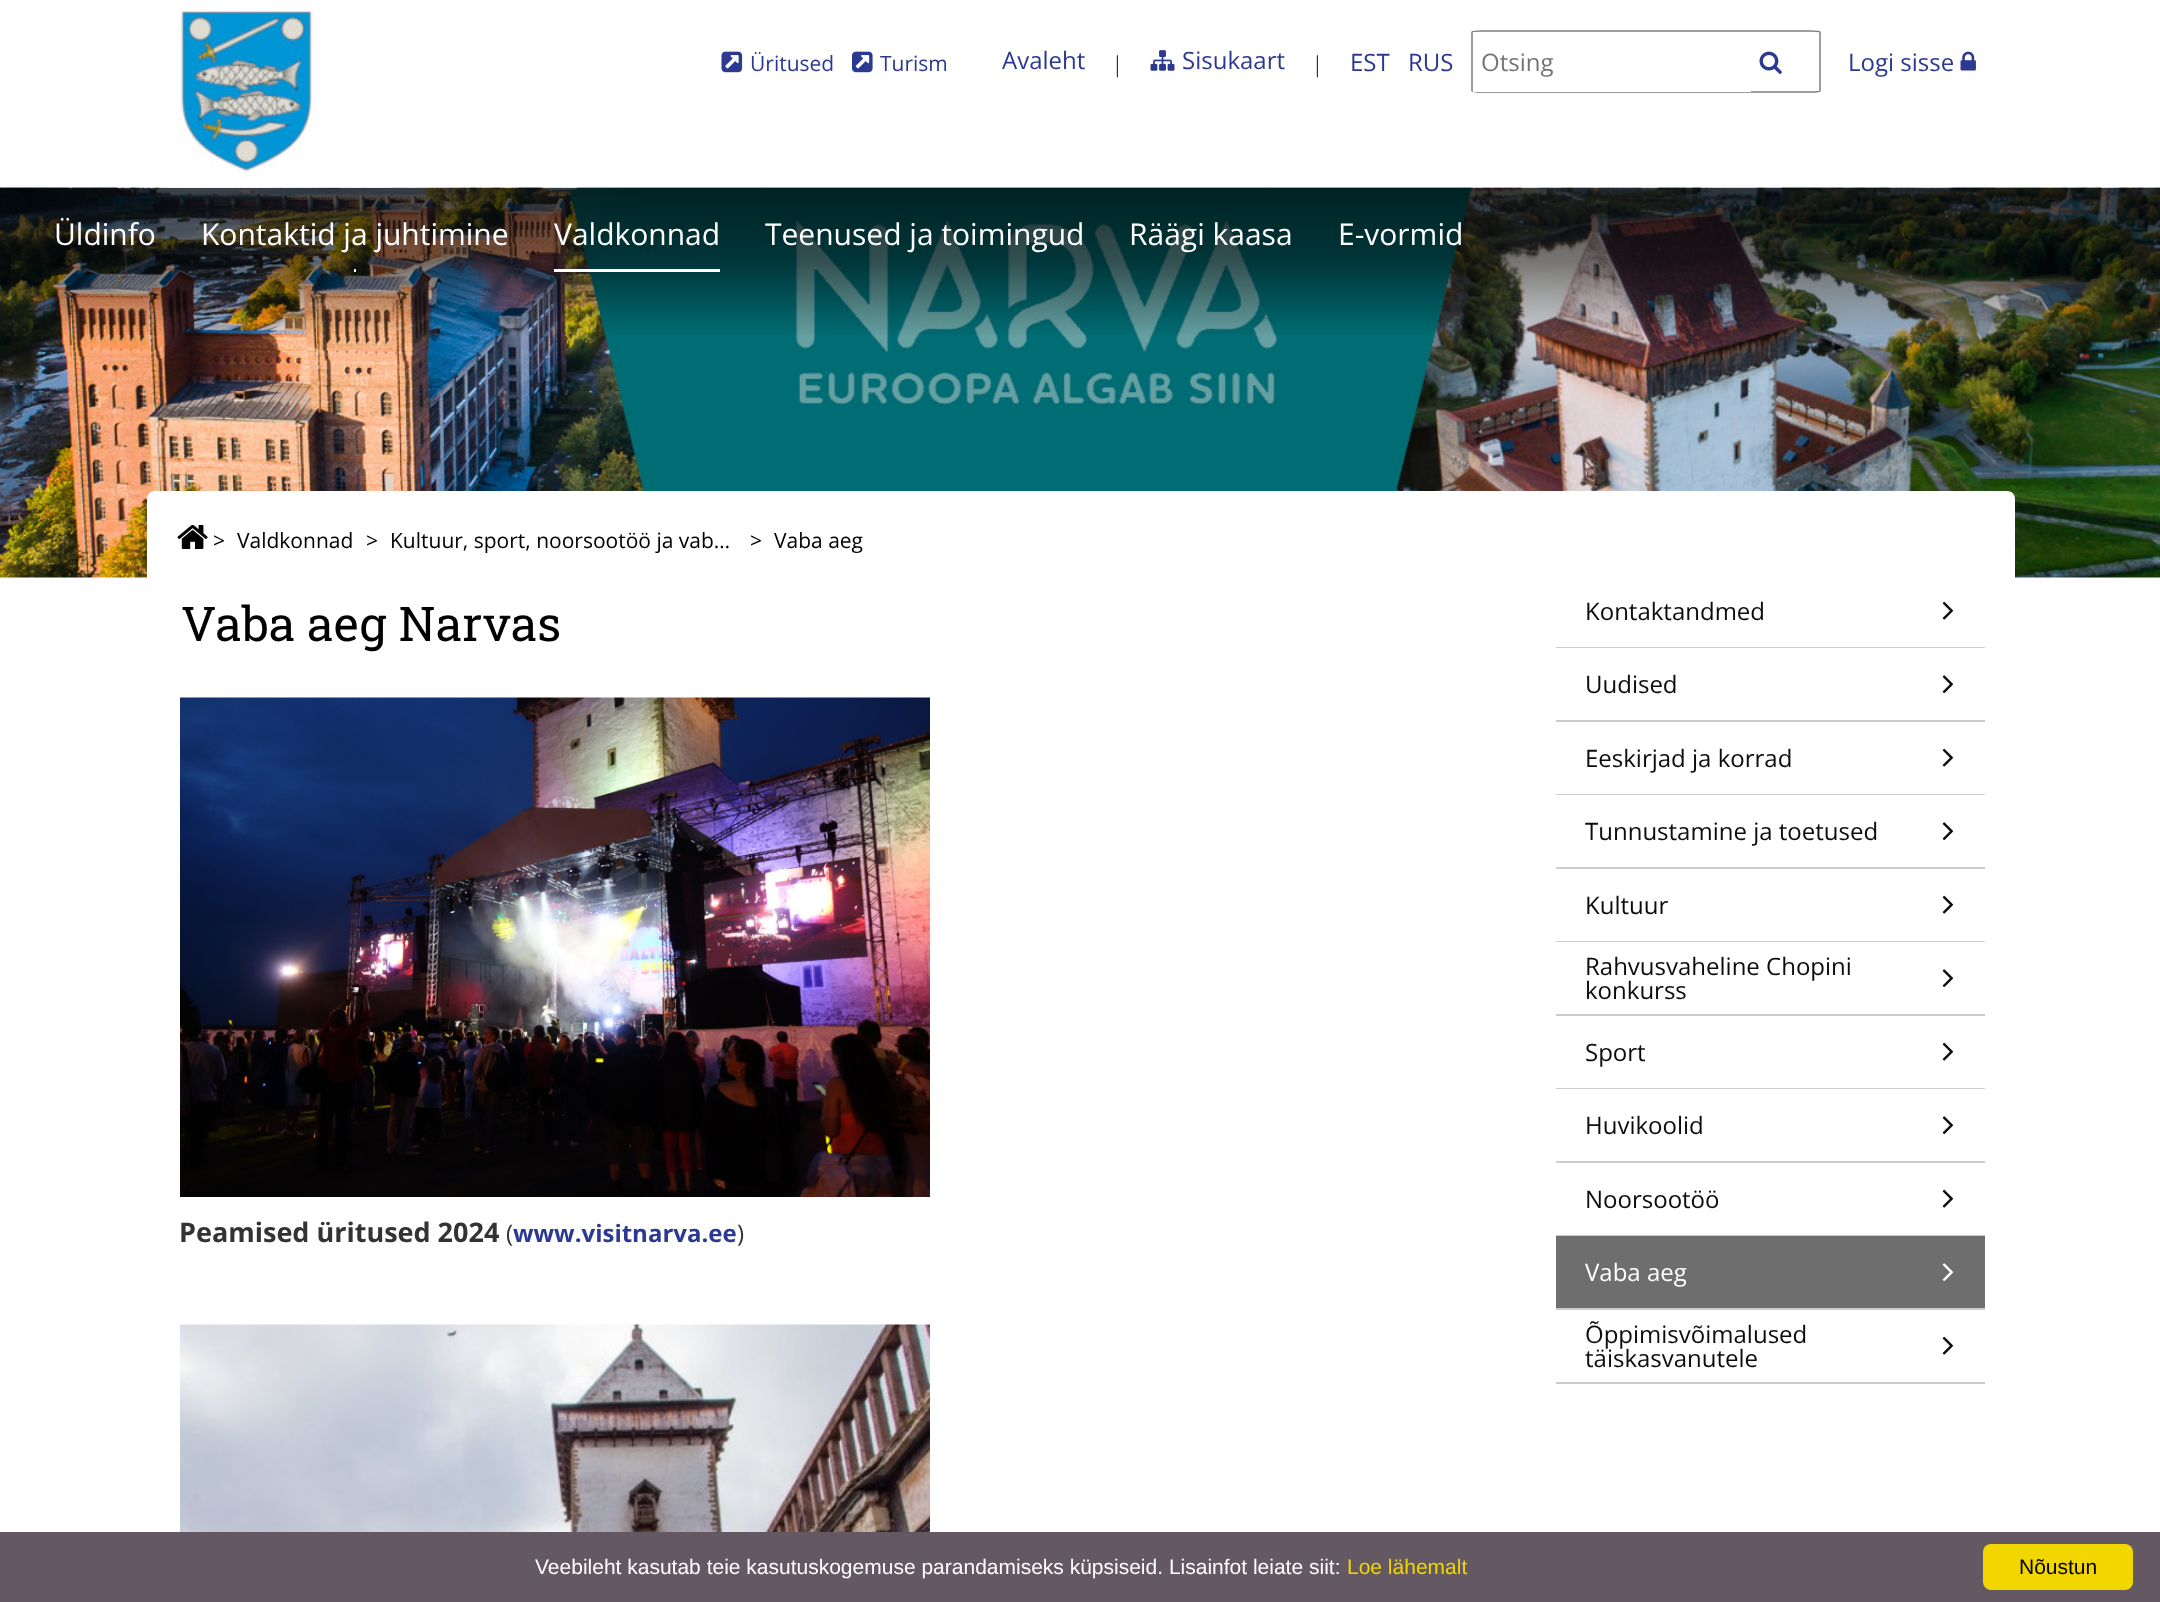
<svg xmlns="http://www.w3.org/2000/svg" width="2160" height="1602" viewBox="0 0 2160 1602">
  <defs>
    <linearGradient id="g1" gradientUnits="userSpaceOnUse" x1="1080" y1="187" x2="1080" y2="338"><stop offset="0" stop-color="rgb(0,0,0)" stop-opacity="0.7"/><stop offset="0.5" stop-color="rgb(0,0,0)" stop-opacity="0.5"/><stop offset="1" stop-color="rgb(0,0,0)" stop-opacity="0"/></linearGradient>
  </defs>
  <rect width="100%" height="100%" fill="rgb(255,255,255)"/>
  <image x="0" y="187" width="2160" height="391" href="pic8.png"/>
  <image x="49" y="187" width="592" height="64" href="pic1.png"/>
  <image x="169" y="10" width="223" height="178" href="pic2.png"/>
  <image x="721" y="51" width="22" height="22" href="pic3.png"/>
  <text x="750" y="71" font-family="Open Sans" font-size="21" fill="rgb(43,57,144)">Üritused</text>
  <image x="852" y="51" width="21" height="22" href="pic4.png"/>
  <text x="880" y="71" font-family="Open Sans" font-size="21" fill="rgb(43,57,144)">Turism</text>
  <text x="1002" y="69" font-family="Open Sans" font-size="24" fill="rgb(43,57,144)">Avaleht</text>
  <text x="1115" y="72" font-family="Liberation Serif" font-size="24" fill="rgb(51,51,51)">|</text>
  <image x="1150" y="50" width="25" height="21" href="pic5.png"/>
  <text x="1182" y="69" font-family="Open Sans" font-size="24" fill="rgb(43,57,144)">Sisukaart</text>
  <text x="1315" y="72" font-family="Liberation Serif" font-size="24" fill="rgb(51,51,51)">|</text>
  <g font-family="Open Sans" font-size="24" fill="rgb(43,57,144)">
    <text x="1350" y="71">EST</text>
    <text x="1408" y="71">RUS</text>
  </g>
  <path d="M1482 31H1810.5C1816 31 1820 31.5 1820 32V91C1820 91.5 1816 92 1810.5 92H1482C1476.5 92 1472 91.5 1472 91V32C1472 31.5 1476.5 31 1482 31Z" fill="none" stroke="rgb(128,128,128)" stroke-width="1.5"/>
  <rect x="1473" y="32" width="278" height="60" fill="rgb(255,255,255)"/>
  <text x="1481" y="71" font-family="Open Sans" font-size="24" fill="rgb(117,117,117)">Otsing</text>
  <image x="1759" y="51" width="23" height="23" href="pic6.png"/>
  <text x="1848" y="71" font-family="Open Sans" font-size="24" fill="rgb(43,57,144)">Logi sisse</text>
  <image x="1960" y="51" width="16" height="20" href="pic7.png"/>
  <rect x="0" y="188" width="2160" height="147" fill="url(#g1)"/>
  <g font-family="Open Sans" font-size="30" fill="rgb(255,255,255)">
    <text x="54" y="245">Üldinfo</text>
    <text x="201" y="245">Kontaktid ja juhtimine</text>
  </g>
  <rect x="354" y="269" width="2" height="3" fill="rgb(255,255,255)"/>
  <text x="554" y="245" font-family="Open Sans" font-size="30" fill="rgb(255,255,255)">Valdkonnad</text>
  <rect x="554" y="269" width="166" height="3" fill="rgb(255,255,255)"/>
  <g font-family="Open Sans" font-size="30" fill="rgb(255,255,255)">
    <text x="765" y="245">Teenused ja toimingud</text>
    <text x="1129" y="245">Räägi kaasa</text>
    <text x="1338" y="245">E-vormid</text>
  </g>
  <path d="M155 491H2007C2011.5 491 2015 494.5 2015 499V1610H147V499C147 494.5 150.5 491 155 491Z" fill="rgb(255,255,255)"/>
  <image x="177" y="525" width="31" height="24" href="pic9.png"/>
  <g font-family="Open Sans" font-size="21" fill="rgb(0,0,0)">
    <text x="213" y="548">&gt;</text>
    <text x="237" y="548">Valdkonnad</text>
    <text x="366" y="548">&gt;</text>
    <text x="390" y="548">Kultuur, sport, noorsootöö ja vab…</text>
    <text x="750" y="548">&gt;</text>
    <text x="774" y="548">Vaba aeg</text>
  </g>
  <text x="181" y="641" font-family="Roboto Slab" font-size="48" fill="rgb(0,0,0)">Vaba aeg Narvas</text>
  <image x="180" y="697" width="750" height="500" href="pic10.png"/>
  <text x="179" y="1242" font-family="Open Sans" font-size="27" font-weight="bold" fill="rgb(51,51,51)">Peamised üritused 2024</text>
  <text x="506" y="1242" font-family="Open Sans" font-size="24" fill="rgb(51,51,51)">(</text>
  <text x="513" y="1242" font-family="Open Sans" font-size="24" font-weight="bold" fill="rgb(43,57,144)">www.visitnarva.ee</text>
  <text x="737" y="1242" font-family="Open Sans" font-size="24" fill="rgb(51,51,51)">)</text>
  <image x="180" y="1324" width="750" height="208" href="pic11.png"/>
  <rect x="1556" y="647" width="429" height="1" fill="rgb(204,204,204)"/>
  <text x="1585" y="620" font-family="Open Sans" font-size="24" fill="rgb(12,12,12)">Kontaktandmed</text>
  <image x="1942" y="601" width="12" height="19" href="pic12.png"/>
  <rect x="1556" y="720" width="429" height="2" fill="rgb(204,204,204)"/>
  <text x="1585" y="693" font-family="Open Sans" font-size="24" fill="rgb(12,12,12)">Uudised</text>
  <image x="1942" y="675" width="12" height="19" href="pic13.png"/>
  <rect x="1556" y="794" width="429" height="1" fill="rgb(204,204,204)"/>
  <text x="1585" y="767" font-family="Open Sans" font-size="24" fill="rgb(12,12,12)">Eeskirjad ja korrad</text>
  <image x="1942" y="748" width="12" height="19" href="pic12.png"/>
  <rect x="1556" y="867" width="429" height="2" fill="rgb(204,204,204)"/>
  <text x="1585" y="840" font-family="Open Sans" font-size="24" fill="rgb(12,12,12)">Tunnustamine ja toetused</text>
  <image x="1942" y="822" width="12" height="19" href="pic13.png"/>
  <rect x="1556" y="941" width="429" height="1" fill="rgb(204,204,204)"/>
  <text x="1585" y="914" font-family="Open Sans" font-size="24" fill="rgb(12,12,12)">Kultuur</text>
  <image x="1942" y="895" width="12" height="19" href="pic12.png"/>
  <rect x="1556" y="1014" width="429" height="2" fill="rgb(204,204,204)"/>
  <text x="1585" y="975" font-family="Open Sans" font-size="24" fill="rgb(12,12,12)">Rahvusvaheline Chopini</text>
  <image x="1942" y="969" width="12" height="19" href="pic13.png"/>
  <text x="1585" y="999" font-family="Open Sans" font-size="24" fill="rgb(12,12,12)">konkurss</text>
  <rect x="1556" y="1088" width="429" height="1" fill="rgb(204,204,204)"/>
  <text x="1585" y="1061" font-family="Open Sans" font-size="24" fill="rgb(12,12,12)">Sport</text>
  <image x="1942" y="1042" width="12" height="19" href="pic12.png"/>
  <rect x="1556" y="1161" width="429" height="2" fill="rgb(204,204,204)"/>
  <text x="1585" y="1134" font-family="Open Sans" font-size="24" fill="rgb(12,12,12)">Huvikoolid</text>
  <image x="1942" y="1116" width="12" height="19" href="pic13.png"/>
  <rect x="1556" y="1235" width="429" height="1" fill="rgb(204,204,204)"/>
  <text x="1585" y="1208" font-family="Open Sans" font-size="24" fill="rgb(12,12,12)">Noorsootöö</text>
  <image x="1942" y="1189" width="12" height="19" href="pic12.png"/>
  <rect x="1556" y="1236" width="429" height="72" fill="rgb(110,110,110)"/>
  <rect x="1556" y="1308" width="429" height="2" fill="rgb(204,204,204)"/>
  <text x="1585" y="1281" font-family="Open Sans" font-size="24" fill="rgb(255,255,255)">Vaba aeg</text>
  <image x="1942" y="1263" width="12" height="19" href="pic14.png"/>
  <rect x="1556" y="1382" width="429" height="2" fill="rgb(204,204,204)"/>
  <text x="1585" y="1343" font-family="Open Sans" font-size="24" fill="rgb(12,12,12)">Õppimisvõimalused</text>
  <image x="1942" y="1336" width="12" height="19" href="pic12.png"/>
  <text x="1585" y="1367" font-family="Open Sans" font-size="24" fill="rgb(12,12,12)">täiskasvanutele</text>
  <rect x="0" y="1532" width="2160" height="70" fill="rgb(100,88,98)"/>
  <text x="535" y="1574" font-family="Liberation Sans" font-size="21" fill="rgb(255,255,255)">Veebileht kasutab teie kasutuskogemuse parandamiseks küpsiseid. Lisainfot leiate siit:</text>
  <text x="1347" y="1574" font-family="Liberation Sans" font-size="21" fill="rgb(241,214,0)">Loe lähemalt</text>
  <rect x="1983" y="1544" width="150" height="46" rx="8" fill="rgb(241,214,0)"/>
  <text x="2019" y="1574" font-family="Liberation Sans" font-size="21" fill="rgb(0,0,0)">Nõustun</text>
</svg>
